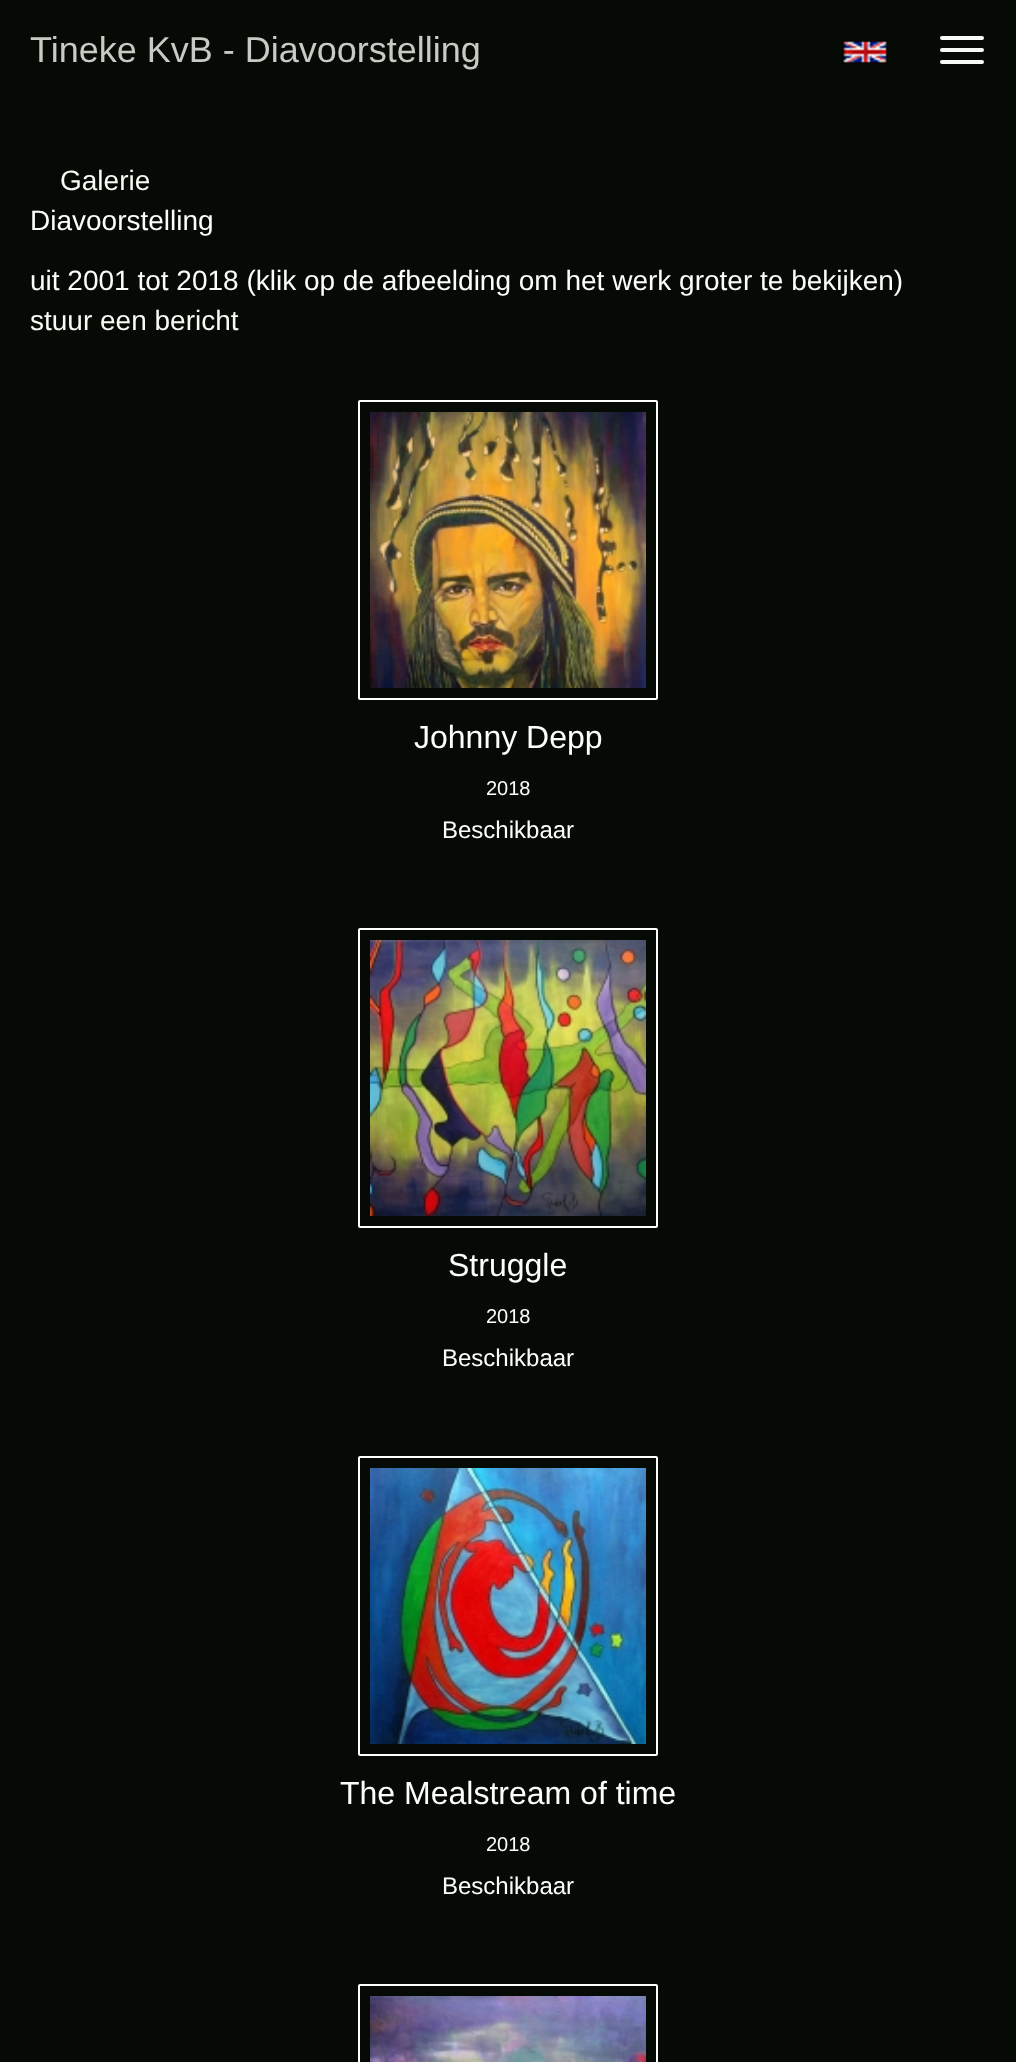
<svg xmlns="http://www.w3.org/2000/svg" width="1016" height="2062" viewBox="0 0 1016 2062">
  <rect width="100%" height="100%" fill="rgb(6,10,4)"/>
  <text x="30" y="62" font-family="Liberation Sans" font-size="36" fill="rgb(199,203,197)">Tineke KvB - Diavoorstelling</text>
  <rect x="940" y="36" width="44" height="4" rx="2" fill="rgb(247,251,245)"/>
  <rect x="940" y="48" width="44" height="4" rx="2" fill="rgb(247,251,245)"/>
  <rect x="940" y="60" width="44" height="4" rx="2" fill="rgb(247,251,245)"/>
  <image x="842" y="40" width="46" height="24" href="pic1.png"/>
  <text x="60" y="190" font-family="Liberation Sans" font-size="28" fill="rgb(247,251,245)">Galerie</text>
  <g font-family="Liberation Sans" font-size="28" fill="rgb(252,254,252)">
    <text x="30" y="230">Diavoorstelling</text>
    <text x="30" y="290">uit 2001 tot 2018 (klik op de afbeelding om het werk groter te bekijken)</text>
  </g>
  <text x="30" y="330" font-family="Liberation Sans" font-size="28" fill="rgb(247,251,245)">stuur een bericht</text>
  <rect x="359" y="401" width="298" height="298" rx="1" fill="none" stroke="rgb(255,255,255)" stroke-width="2"/>
  <image x="370" y="412" width="276" height="276" href="pic2.png"/>
  <text x="414" y="748" font-family="Liberation Sans" font-size="32" fill="rgb(252,254,252)">Johnny Depp</text>
  <text x="486" y="795" font-family="Liberation Sans" font-size="20" fill="rgb(252,254,252)">2018</text>
  <text x="442" y="838" font-family="Liberation Sans" font-size="24" fill="rgb(252,254,252)">Beschikbaar</text>
  <rect x="359" y="929" width="298" height="298" rx="1" fill="none" stroke="rgb(255,255,255)" stroke-width="2"/>
  <image x="370" y="940" width="276" height="276" href="pic3.png"/>
  <text x="448" y="1276" font-family="Liberation Sans" font-size="32" fill="rgb(252,254,252)">Struggle</text>
  <text x="486" y="1323" font-family="Liberation Sans" font-size="20" fill="rgb(252,254,252)">2018</text>
  <text x="442" y="1366" font-family="Liberation Sans" font-size="24" fill="rgb(252,254,252)">Beschikbaar</text>
  <rect x="359" y="1457" width="298" height="298" rx="1" fill="none" stroke="rgb(255,255,255)" stroke-width="2"/>
  <image x="370" y="1468" width="276" height="276" href="pic4.png"/>
  <text x="340" y="1804" font-family="Liberation Sans" font-size="32" fill="rgb(252,254,252)">The Mealstream of time</text>
  <text x="486" y="1851" font-family="Liberation Sans" font-size="20" fill="rgb(252,254,252)">2018</text>
  <text x="442" y="1894" font-family="Liberation Sans" font-size="24" fill="rgb(252,254,252)">Beschikbaar</text>
  <rect x="359" y="1985" width="298" height="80" rx="1" fill="none" stroke="rgb(255,255,255)" stroke-width="2"/>
  <image x="370" y="1996" width="276" height="66" href="pic5.png"/>
</svg>
